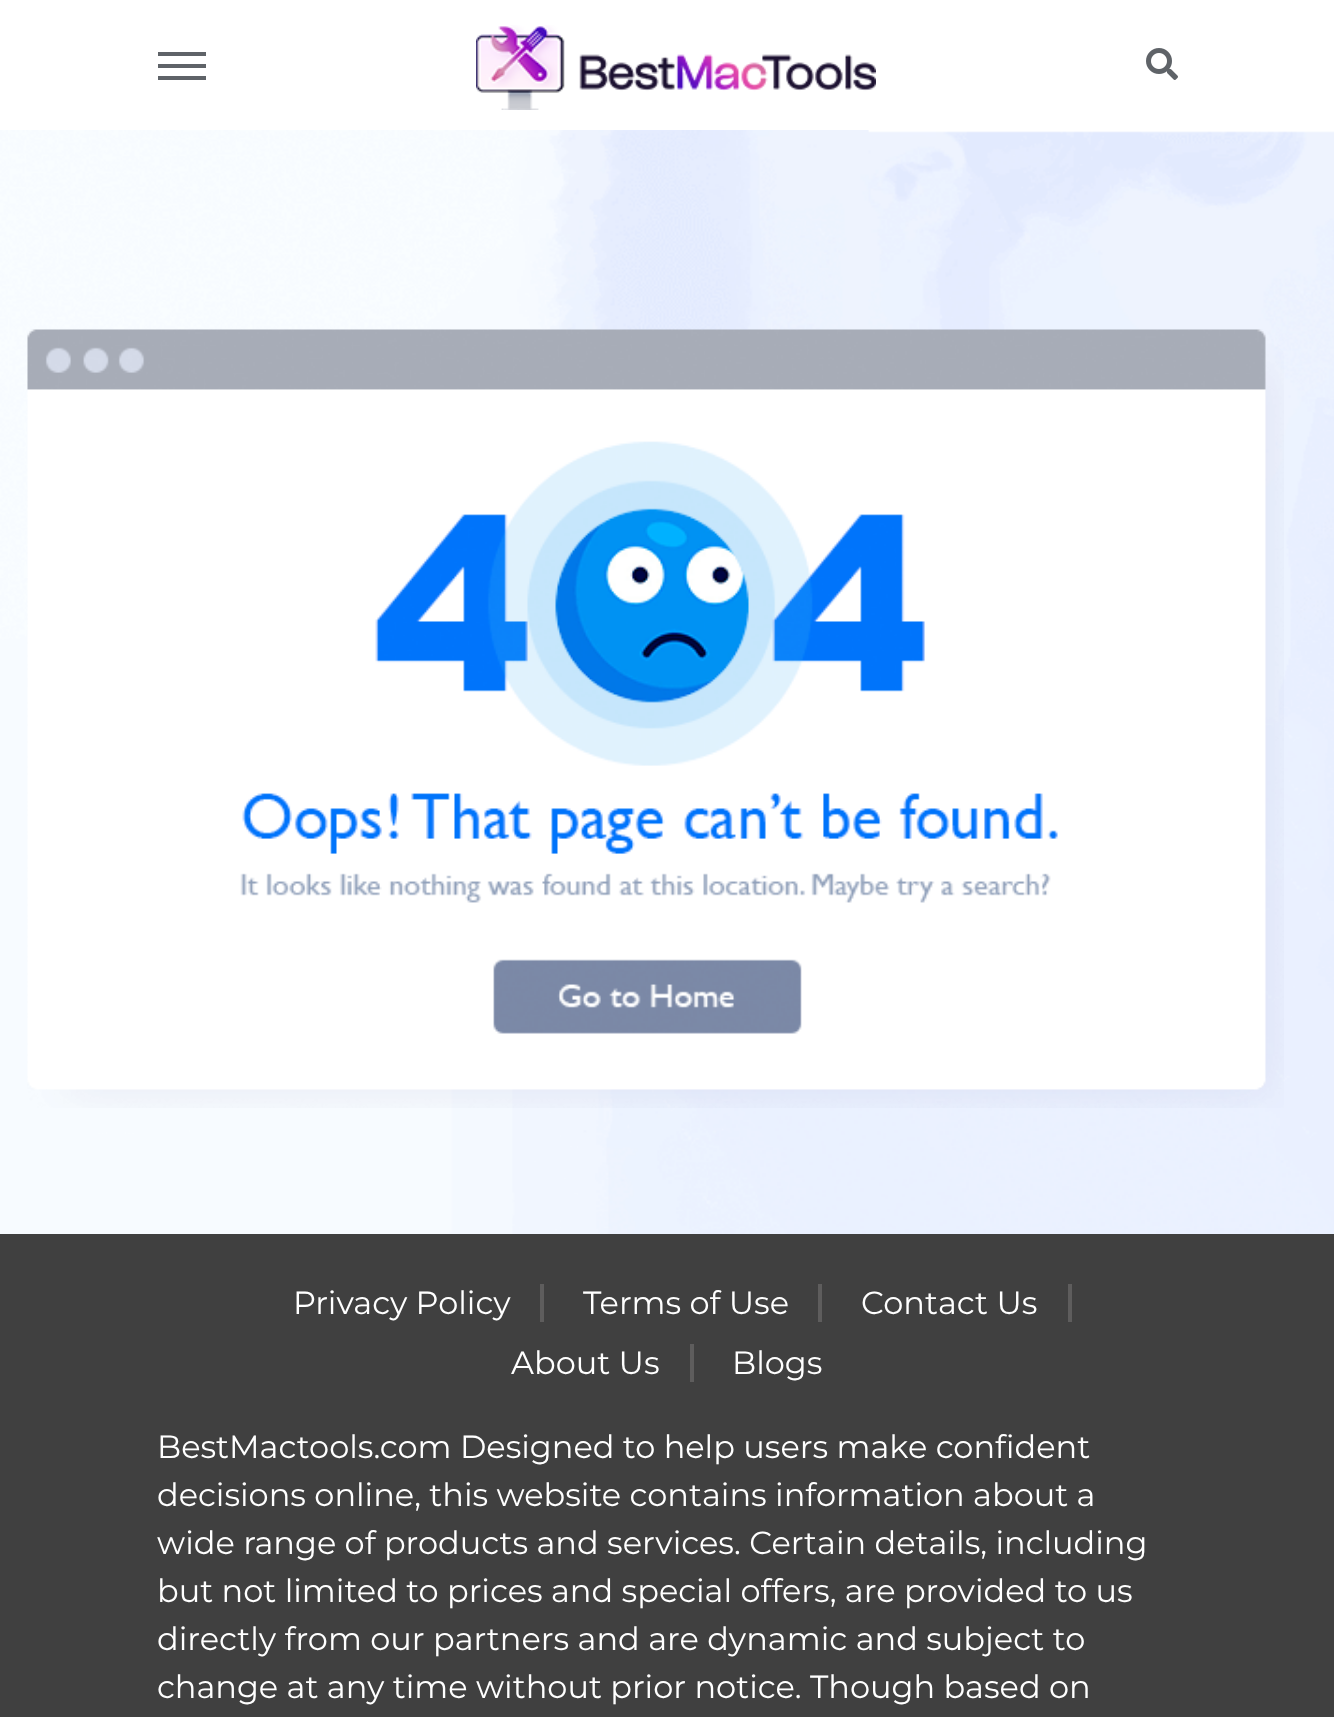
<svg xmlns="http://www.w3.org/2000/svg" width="1334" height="1717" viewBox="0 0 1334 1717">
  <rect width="100%" height="100%" fill="rgb(255,255,255)"/>
  <rect x="158" y="52" width="48" height="4" fill="rgb(95,99,104)"/>
  <rect x="158" y="64" width="48" height="4" fill="rgb(95,99,104)"/>
  <rect x="158" y="76" width="48" height="4" fill="rgb(95,99,104)"/>
  <image x="476" y="25" width="400" height="85" href="pic1.png"/>
  <image x="1146" y="48" width="32" height="32" href="pic2.png"/>
  <image x="0" y="130" width="1334" height="1104" href="pic3.png"/>
  <image x="27" y="329" width="1257" height="779" href="pic4.png"/>
  <rect x="0" y="1234" width="1334" height="483" fill="rgb(64,64,64)"/>
  <text x="293" y="1314" font-family="Montserrat" font-size="32" fill="rgb(255,255,255)">Privacy Policy</text>
  <rect x="540" y="1284" width="4" height="38" fill="rgb(94,93,93)"/>
  <text x="583" y="1314" font-family="Montserrat" font-size="32" fill="rgb(255,255,255)">Terms of Use</text>
  <rect x="818" y="1284" width="4" height="38" fill="rgb(94,93,93)"/>
  <text x="861" y="1314" font-family="Montserrat" font-size="32" fill="rgb(255,255,255)">Contact Us</text>
  <rect x="1068" y="1284" width="4" height="38" fill="rgb(94,93,93)"/>
  <text x="511" y="1374" font-family="Montserrat" font-size="32" fill="rgb(255,255,255)">About Us</text>
  <rect x="690" y="1344" width="4" height="38" fill="rgb(94,93,93)"/>
  <g font-family="Montserrat" font-size="32" fill="rgb(255,255,255)">
    <text x="732" y="1374">Blogs</text>
    <text>
      <tspan x="157" y="1458">BestMactools.com Designed to help users make confident</tspan>
      <tspan x="157" y="1506">decisions online, this website contains information about a</tspan>
      <tspan x="157" y="1554">wide range of products and services. Certain details, including</tspan>
      <tspan x="157" y="1602">but not limited to prices and special offers, are provided to us</tspan>
      <tspan x="157" y="1650">directly from our partners and are dynamic and subject to</tspan>
      <tspan x="157" y="1698">change at any time without prior notice. Though based on</tspan>
    </text>
  </g>
</svg>
